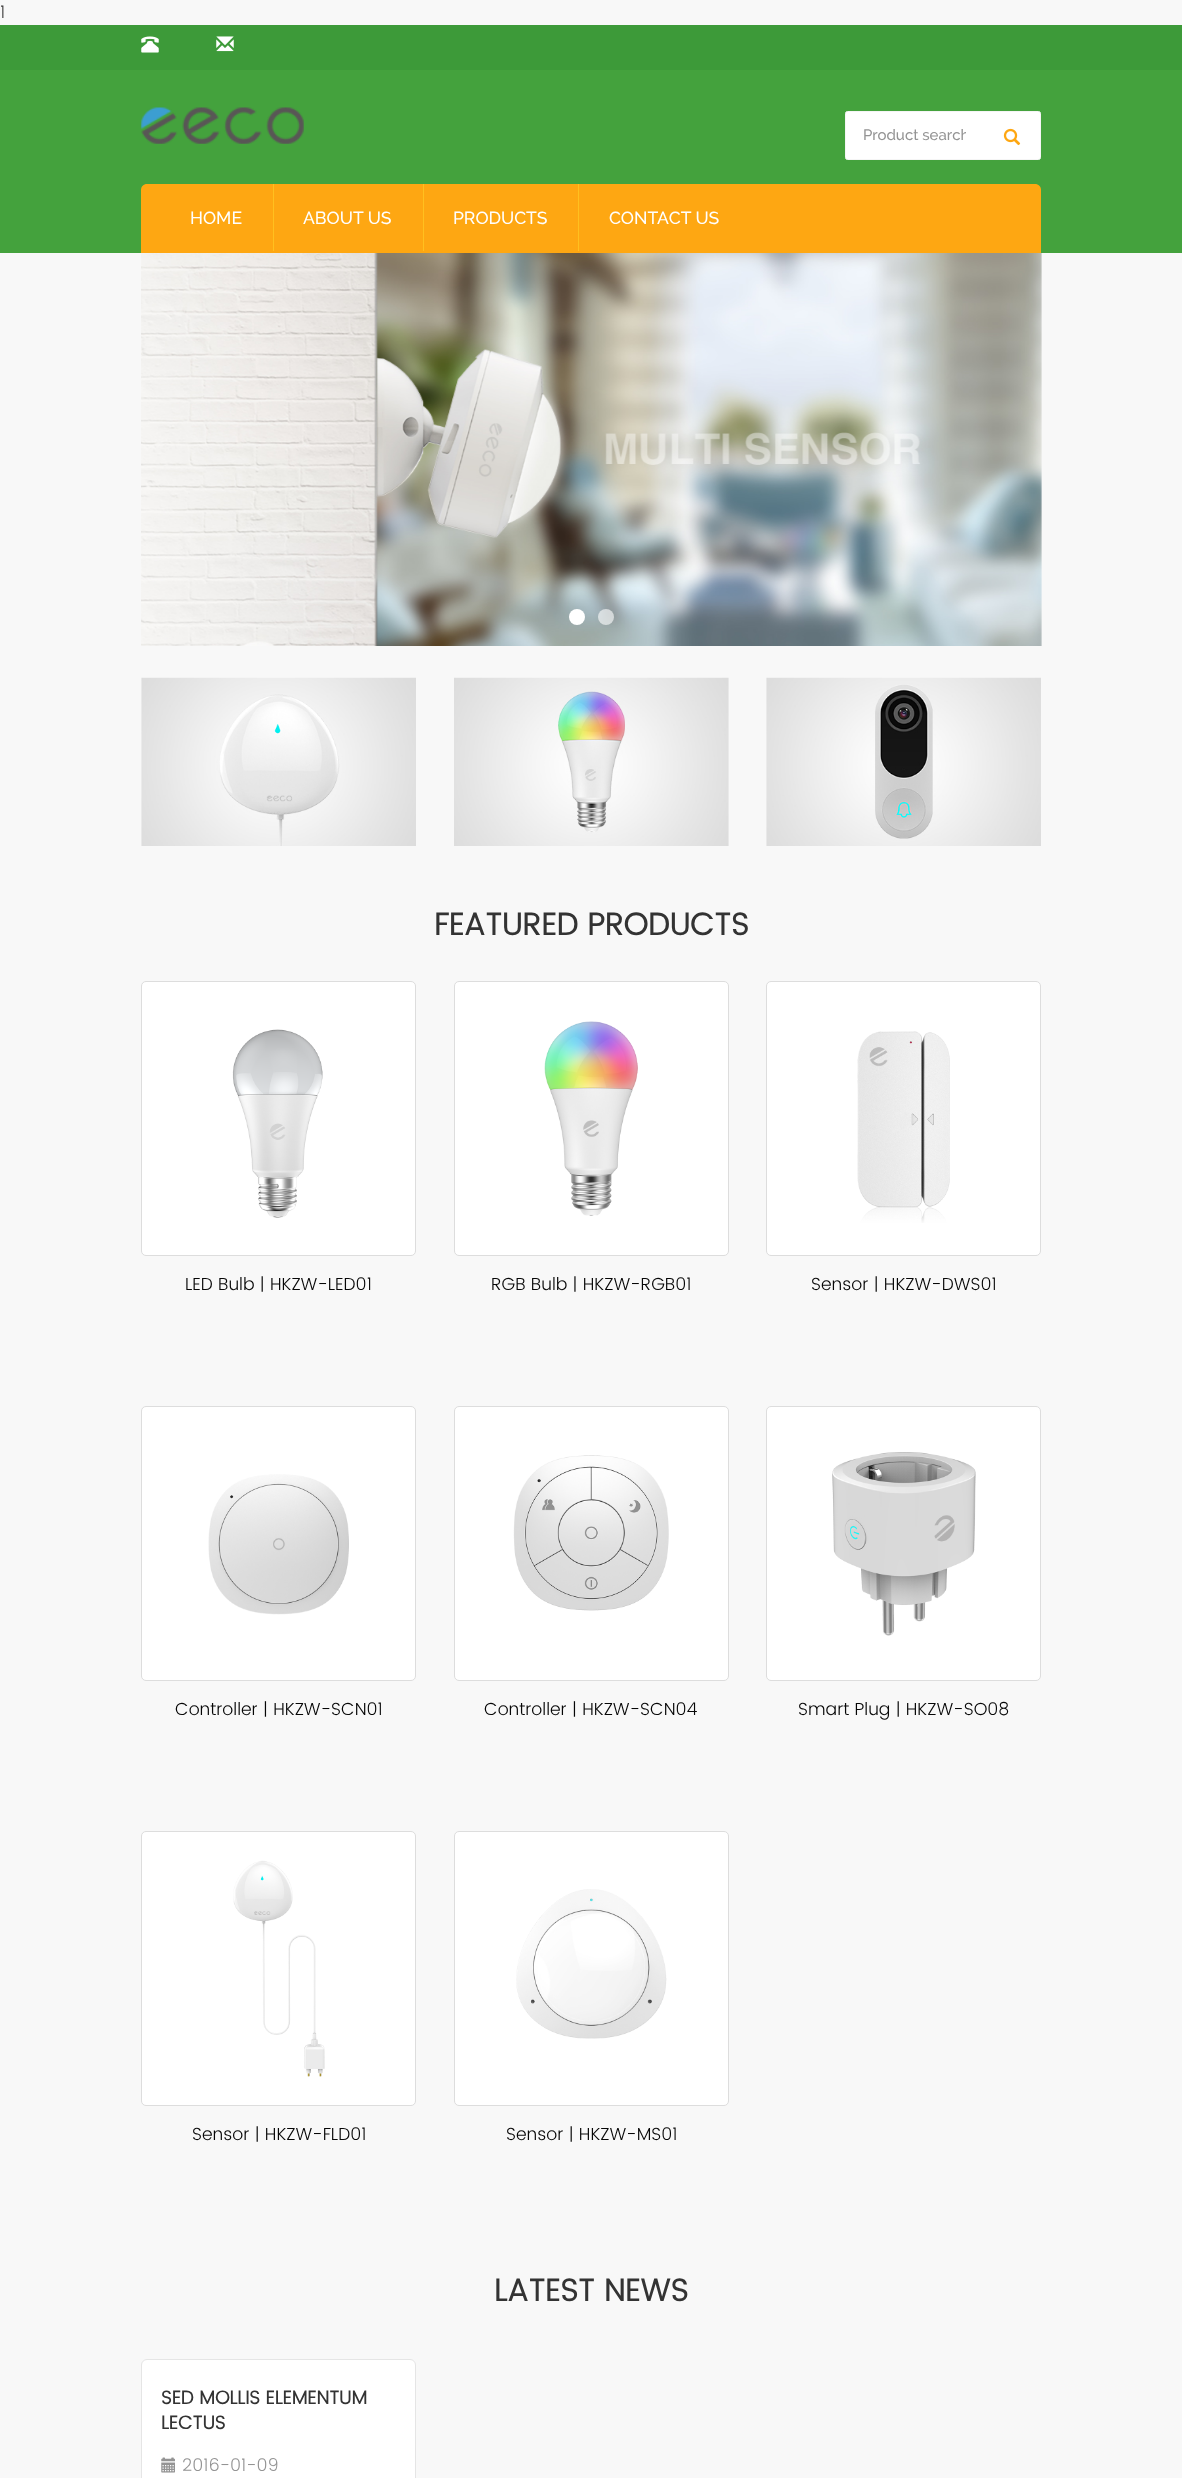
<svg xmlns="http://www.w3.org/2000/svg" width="1182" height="2478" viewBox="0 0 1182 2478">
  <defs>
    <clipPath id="clip1"><rect x="864" y="126" width="102" height="18"/></clipPath>
  </defs>
  <rect width="100%" height="100%" fill="rgb(248,248,248)"/>
  <text x="0" y="18" font-family="Poppins" font-size="17.5" font-weight="300" fill="rgb(58,57,57)">1</text>
  <rect x="0" y="70" width="1182" height="183" fill="rgb(68,162,61)"/>
  <rect x="0" y="25" width="1182" height="45" fill="rgb(61,154,57)"/>
  <image x="141" y="36" width="18" height="17" href="pic1.png"/>
  <image x="216" y="36" width="18" height="16" href="pic2.png"/>
  <image x="141" y="107" width="163" height="37" href="pic3.png"/>
  <rect x="845.5" y="111.5" width="195" height="48" rx="2" fill="rgb(255,255,255)" stroke="rgb(245,245,245)"/>
  <g clip-path="url(#clip1)">
    <text x="863" y="140" font-family="Raleway" font-size="15" font-weight="500" fill="rgb(148,148,148)">Product search</text>
  </g>
  <image x="1003" y="128" width="18" height="18" href="pic4.png"/>
  <path d="M147 184H1035C1038.5 184 1041 186.5 1041 190V253H141V190C141 186.5 143.5 184 147 184Z" fill="rgb(254,167,18)"/>
  <rect x="273" y="184" width="1" height="67" fill="rgb(255,192,31)"/>
  <text x="190" y="224" font-family="Raleway" font-size="17.5" font-weight="500" fill="rgb(255,255,255)">HOME</text>
  <rect x="423" y="184" width="1" height="67" fill="rgb(255,192,31)"/>
  <text x="303" y="224" font-family="Raleway" font-size="17.5" font-weight="500" fill="rgb(255,255,255)">ABOUT US</text>
  <rect x="578" y="184" width="1" height="67" fill="rgb(255,192,31)"/>
  <g font-family="Raleway" font-size="17.5" font-weight="500" fill="rgb(255,255,255)">
    <text x="453" y="224">PRODUCTS</text>
    <text x="609" y="224">CONTACT US</text>
  </g>
  <image x="141" y="253" width="901" height="393" href="pic5.png"/>
  <circle cx="577" cy="617" r="8" fill="rgb(255,255,255)"/>
  <circle cx="606" cy="617" r="8" fill="rgba(255,255,255,0.6)"/>
  <image x="141" y="677" width="275" height="169" href="pic6.png"/>
  <image x="454" y="677" width="275" height="169" href="pic7.png"/>
  <image x="766" y="677" width="275" height="169" href="pic8.png"/>
  <text x="434" y="935" font-family="Poppins" font-size="31.25" font-weight="bold" fill="rgb(51,51,51)">FEATURED PRODUCTS</text>
  <rect x="141.5" y="981.5" width="274" height="274" rx="4.5" fill="rgb(255,255,255)" stroke="rgb(221,221,221)"/>
  <image x="232" y="1029" width="91" height="189" href="pic9.png"/>
  <text x="185" y="1290" font-family="Poppins" font-size="17.5" font-weight="300" fill="rgb(6,6,6)">LED Bulb | HKZW-LED01</text>
  <rect x="454.5" y="981.5" width="274" height="274" rx="4.5" fill="rgb(255,255,255)" stroke="rgb(221,221,221)"/>
  <image x="544" y="1021" width="94" height="195" href="pic10.png"/>
  <text x="491" y="1290" font-family="Poppins" font-size="17.5" font-weight="300" fill="rgb(6,6,6)">RGB Bulb | HKZW-RGB01</text>
  <rect x="766.5" y="981.5" width="274" height="274" rx="4.5" fill="rgb(255,255,255)" stroke="rgb(221,221,221)"/>
  <image x="857" y="1031" width="93" height="192" href="pic11.png"/>
  <text x="811" y="1290" font-family="Poppins" font-size="17.5" font-weight="300" fill="rgb(6,6,6)">Sensor | HKZW-DWS01</text>
  <rect x="141.5" y="1406.5" width="274" height="274" rx="4.5" fill="rgb(255,255,255)" stroke="rgb(221,221,221)"/>
  <image x="208" y="1474" width="141" height="141" href="pic12.png"/>
  <text x="175" y="1715" font-family="Poppins" font-size="17.5" font-weight="300" fill="rgb(6,6,6)">Controller | HKZW-SCN01</text>
  <rect x="454.5" y="1406.5" width="274" height="274" rx="4.5" fill="rgb(255,255,255)" stroke="rgb(221,221,221)"/>
  <image x="513" y="1455" width="156" height="156" href="pic13.png"/>
  <text x="484" y="1715" font-family="Poppins" font-size="17.5" font-weight="300" fill="rgb(6,6,6)">Controller | HKZW-SCN04</text>
  <rect x="766.5" y="1406.5" width="274" height="274" rx="4.5" fill="rgb(255,255,255)" stroke="rgb(221,221,221)"/>
  <image x="832" y="1452" width="144" height="184" href="pic14.png"/>
  <text x="798" y="1715" font-family="Poppins" font-size="17.5" font-weight="300" fill="rgb(6,6,6)">Smart Plug | HKZW-SO08</text>
  <rect x="141.5" y="1831.5" width="274" height="274" rx="4.5" fill="rgb(255,255,255)" stroke="rgb(221,221,221)"/>
  <image x="233" y="1860" width="92" height="217" href="pic15.png"/>
  <text x="192" y="2140" font-family="Poppins" font-size="17.5" font-weight="300" fill="rgb(6,6,6)">Sensor | HKZW-FLD01</text>
  <rect x="454.5" y="1831.5" width="274" height="274" rx="4.5" fill="rgb(255,255,255)" stroke="rgb(221,221,221)"/>
  <image x="516" y="1889" width="151" height="150" href="pic16.png"/>
  <text x="506" y="2140" font-family="Poppins" font-size="17.5" font-weight="300" fill="rgb(6,6,6)">Sensor | HKZW-MS01</text>
  <text x="494" y="2301" font-family="Poppins" font-size="31.25" font-weight="bold" fill="rgb(51,51,51)">LATEST NEWS</text>
  <rect x="141.5" y="2359.5" width="274" height="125" rx="5.5" fill="rgb(255,255,255)" stroke="rgb(229,229,229)"/>
  <g font-family="Poppins" font-size="18.75" font-weight="bold" fill="rgb(51,51,51)">
    <text>
      <tspan x="161" y="2404">SED MOLLIS ELEMENTUM</tspan>
      <tspan x="161" y="2429">LECTUS</tspan>
    </text>
  </g>
  <image x="161" y="2457" width="14" height="16" href="pic17.png"/>
  <text x="182" y="2471" font-family="Poppins" font-size="17.5" font-weight="300" fill="rgb(148,148,148)">2016-01-09</text>
</svg>
